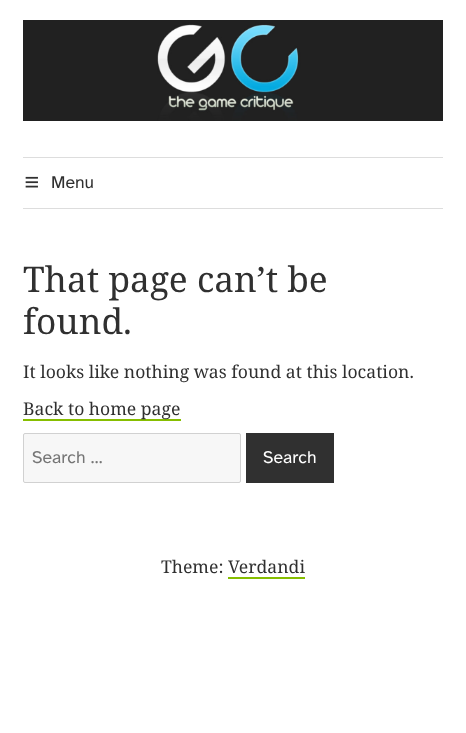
<svg xmlns="http://www.w3.org/2000/svg" width="466" height="733" viewBox="0 0 466 733">
  <rect width="100%" height="100%" fill="rgb(255,255,255)"/>
  <image x="23" y="20" width="420" height="101" href="pic1.png"/>
  <rect x="23" y="157" width="420" height="1" fill="rgb(221,221,221)"/>
  <rect x="23" y="208" width="420" height="1" fill="rgb(221,221,221)"/>
  <image x="25" y="176" width="13" height="12" href="pic2.png"/>
  <text x="51" y="188" font-family="Atkinson Hyperlegible" font-size="17.6" fill="rgb(48,48,48)">Menu</text>
  <g font-family="Noto Serif" font-size="35.25" fill="rgb(48,48,48)">
    <text>
      <tspan x="23" y="292">That page can’t be</tspan>
      <tspan x="23" y="334">found.</tspan>
    </text>
  </g>
  <text x="23" y="378" font-family="Noto Serif" font-size="17.6" fill="rgb(48,48,48)">It looks like nothing was found at this location.</text>
  <rect x="23" y="419" width="158" height="2" fill="rgb(134,190,0)"/>
  <text x="23" y="415" font-family="Noto Serif" font-size="17.6" fill="rgb(48,48,48)">Back to home page</text>
  <rect x="23.5" y="433.5" width="217" height="49" rx="1.5" fill="rgb(247,247,247)" stroke="rgb(209,209,209)"/>
  <text x="32" y="463" font-family="Atkinson Hyperlegible" font-size="17.6" fill="rgb(117,117,117)">Search …</text>
  <rect x="246" y="433" width="88" height="50" fill="rgb(48,48,48)"/>
  <text x="263" y="463" font-family="Atkinson Hyperlegible" font-size="17.6" fill="rgb(255,255,255)">Search</text>
  <text x="161" y="573" font-family="Noto Serif" font-size="17.6" fill="rgb(48,48,48)">Theme: Verdandi</text>
  <rect x="228" y="577" width="77" height="2" fill="rgb(134,190,0)"/>
</svg>
